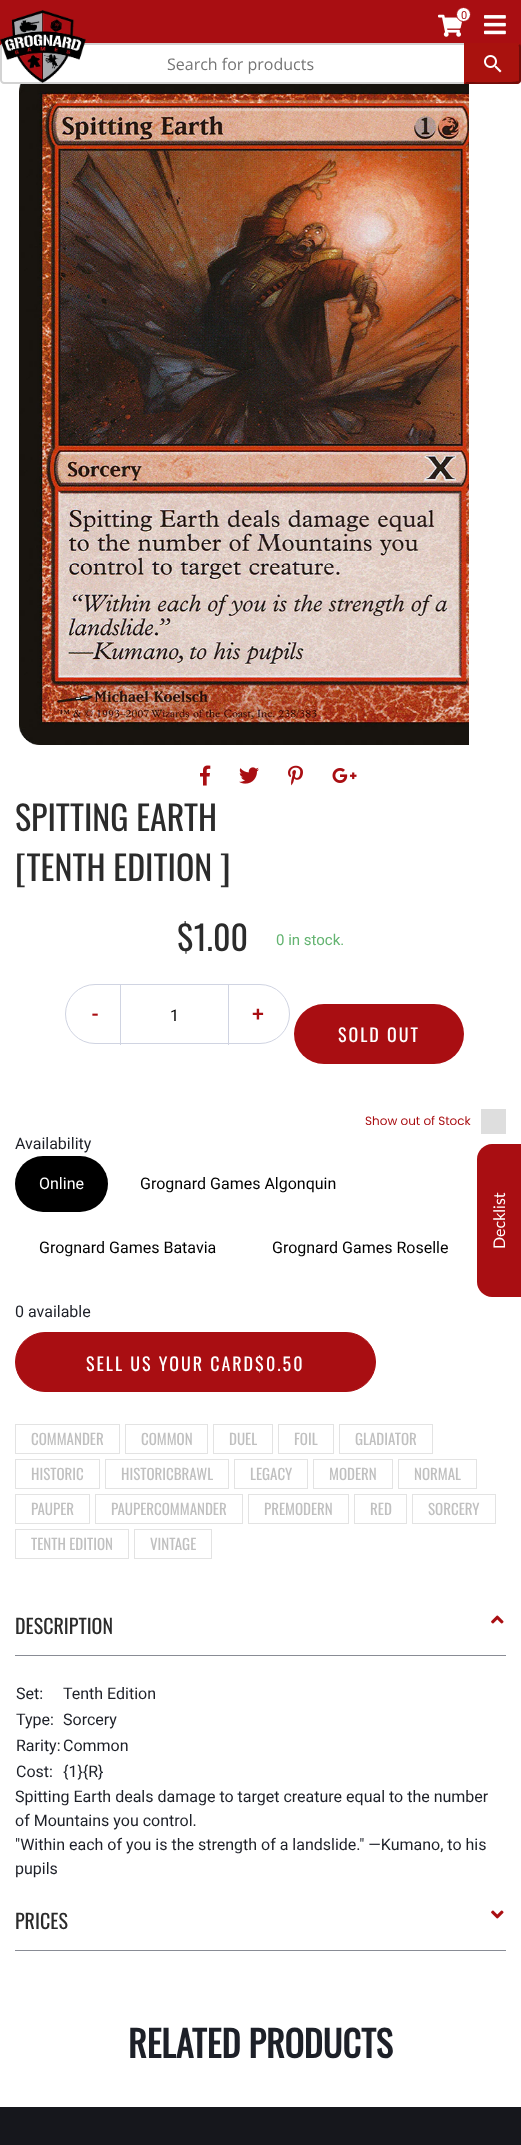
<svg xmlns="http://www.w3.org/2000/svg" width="521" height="2145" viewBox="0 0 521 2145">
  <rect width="100%" height="100%" fill="rgb(255,255,255)"/>
  <rect x="0" y="0" width="521" height="47" fill="rgb(169,14,18)"/>
  <path d="M4 43H464V84H4C2 84 0 82 0 80V47C0 45 2 43 4 43Z" fill="rgb(255,255,255)"/>
  <path d="M4 43H464V84H4C2 84 0 82 0 80V47C0 45 2 43 4 43ZM4 45H464V82H4C3 82 2 81 2 80V47C2 46 3 45 4 45Z" fill="rgb(211,211,211)" fill-rule="evenodd"/>
  <image x="0" y="10" width="86" height="73" href="pic1.png"/>
  <image x="484" y="15" width="22" height="20" href="pic2.png"/>
  <image x="438" y="14" width="25" height="23" href="pic3.png"/>
  <circle cx="463.5" cy="14.5" r="7" fill="rgb(255,255,255)" stroke="rgb(169,14,18)"/>
  <text x="461" y="19" font-family="Roboto" font-size="11" fill="rgb(169,14,18)">0</text>
  <text x="167" y="70" font-family="Open Sans" font-size="16" fill="rgb(117,117,117)">Search for products</text>
  <path d="M464 43H517C519 43 521 45 521 47V80C521 82 519 84 517 84H464Z" fill="rgb(169,18,14)"/>
  <path d="M521 80V47C521 46 520.5 45 520 44L518.5 45.5L519 47V80L518.5 81.5L520 83C520.5 82 521 81 521 80Z" fill="rgb(113,12,9)"/>
  <path d="M517 84L520 83L518 81C517 83 472 82 466 82L464 84Z" fill="rgb(113,12,9)"/>
  <path d="M464 43V84L466 82V45Z" fill="rgb(169,18,14)"/>
  <image x="484" y="55" width="18" height="18" href="pic4.png"/>
  <image x="19" y="84" width="450" height="661" href="pic5.png"/>
  <image x="200" y="765" width="11" height="21" href="pic6.png"/>
  <image x="239" y="767" width="20" height="17" href="pic7.png"/>
  <image x="288" y="765" width="15" height="21" href="pic8.png"/>
  <image x="332" y="768" width="25" height="15" href="pic9.png"/>
  <g font-family="Oswald" font-size="34" fill="rgb(43,43,43)">
    <text>
      <tspan x="15" y="831">SPITTING EARTH</tspan>
      <tspan x="15" y="881">[TENTH EDITION ]</tspan>
    </text>
    <text x="177" y="951">$1.00</text>
  </g>
  <text x="276" y="945" font-family="Roboto" font-size="15" fill="rgb(100,180,113)">0 in stock.</text>
  <rect x="65.5" y="984.5" width="224" height="59" rx="29.5" fill="none" stroke="rgb(208,212,226)"/>
  <text x="92" y="1021" font-family="Roboto" font-size="20" font-weight="bold" fill="rgb(169,14,18)">-</text>
  <rect x="228" y="985" width="1" height="60" fill="rgb(208,212,226)"/>
  <rect x="120" y="985" width="1" height="60" fill="rgb(208,212,226)"/>
  <text x="170" y="1021" font-family="Roboto" font-size="16" fill="rgb(0,0,0)">1</text>
  <text x="252" y="1021" font-family="Roboto" font-size="20" font-weight="bold" fill="rgb(169,14,18)">+</text>
  <rect x="294" y="1004" width="170" height="60" rx="30" fill="rgb(169,14,18)"/>
  <text x="338" y="1042" font-family="Oswald" font-size="18" letter-spacing="2" fill="rgb(255,255,255)">SOLD OUT</text>
  <text x="365" y="1125" font-family="Poppins" font-size="12" fill="rgb(169,14,18)">Show out of Stock</text>
  <rect x="481" y="1109" width="25" height="25" fill="rgb(222,222,222)"/>
  <text x="15" y="1149" font-family="Roboto" font-size="16" fill="rgb(29,32,40)">Availability</text>
  <rect x="15" y="1156" width="93" height="56" rx="28" fill="rgb(0,0,0)"/>
  <text x="39" y="1189" font-family="Roboto" font-size="16" fill="rgb(255,255,255)">Online</text>
  <g font-family="Roboto" font-size="16" fill="rgb(0,0,0)">
    <text x="140" y="1189">Grognard Games Algonquin</text>
    <text x="39" y="1253">Grognard Games Batavia</text>
    <text x="272" y="1253">Grognard Games Roselle</text>
  </g>
  <text x="15" y="1317" font-family="Roboto" font-size="16" fill="rgb(29,32,40)">0 available</text>
  <rect x="15.5" y="1332.5" width="360" height="59" rx="29.5" fill="rgb(169,14,18)" stroke="rgb(169,14,18)"/>
  <text x="86" y="1371" font-family="Oswald" font-size="18" letter-spacing="2" fill="rgb(255,255,255)">SELL US YOUR CARD$0.50</text>
  <rect x="15.5" y="1424.5" width="104" height="29" fill="none" stroke="rgb(227,227,227)"/>
  <text x="31" y="1445" font-family="Oswald" font-size="15" fill="rgb(192,192,192)">COMMANDER</text>
  <rect x="125.5" y="1424.5" width="82" height="29" fill="none" stroke="rgb(227,227,227)"/>
  <text x="141" y="1445" font-family="Oswald" font-size="15" fill="rgb(192,192,192)">COMMON</text>
  <rect x="213.5" y="1424.5" width="59" height="29" fill="none" stroke="rgb(227,227,227)"/>
  <text x="229" y="1445" font-family="Oswald" font-size="15" fill="rgb(192,192,192)">DUEL</text>
  <rect x="278.5" y="1424.5" width="55" height="29" fill="none" stroke="rgb(227,227,227)"/>
  <text x="294" y="1445" font-family="Oswald" font-size="15" fill="rgb(192,192,192)">FOIL</text>
  <rect x="339.5" y="1424.5" width="93" height="29" fill="none" stroke="rgb(227,227,227)"/>
  <text x="355" y="1445" font-family="Oswald" font-size="15" fill="rgb(192,192,192)">GLADIATOR</text>
  <rect x="15.5" y="1459.5" width="84" height="29" fill="none" stroke="rgb(227,227,227)"/>
  <text x="31" y="1480" font-family="Oswald" font-size="15" fill="rgb(192,192,192)">HISTORIC</text>
  <rect x="105.5" y="1459.5" width="123" height="29" fill="none" stroke="rgb(227,227,227)"/>
  <text x="121" y="1480" font-family="Oswald" font-size="15" fill="rgb(192,192,192)">HISTORICBRAWL</text>
  <rect x="234.5" y="1459.5" width="73" height="29" fill="none" stroke="rgb(227,227,227)"/>
  <text x="250" y="1480" font-family="Oswald" font-size="15" fill="rgb(192,192,192)">LEGACY</text>
  <rect x="313.5" y="1459.5" width="79" height="29" fill="none" stroke="rgb(227,227,227)"/>
  <text x="329" y="1480" font-family="Oswald" font-size="15" fill="rgb(192,192,192)">MODERN</text>
  <rect x="398.5" y="1459.5" width="78" height="29" fill="none" stroke="rgb(227,227,227)"/>
  <text x="414" y="1480" font-family="Oswald" font-size="15" fill="rgb(192,192,192)">NORMAL</text>
  <rect x="15.5" y="1494.5" width="74" height="29" fill="none" stroke="rgb(227,227,227)"/>
  <text x="31" y="1515" font-family="Oswald" font-size="15" fill="rgb(192,192,192)">PAUPER</text>
  <rect x="95.5" y="1494.5" width="147" height="29" fill="none" stroke="rgb(227,227,227)"/>
  <text x="111" y="1515" font-family="Oswald" font-size="15" fill="rgb(192,192,192)">PAUPERCOMMANDER</text>
  <rect x="248.5" y="1494.5" width="100" height="29" fill="none" stroke="rgb(227,227,227)"/>
  <text x="264" y="1515" font-family="Oswald" font-size="15" fill="rgb(192,192,192)">PREMODERN</text>
  <rect x="354.5" y="1494.5" width="52" height="29" fill="none" stroke="rgb(227,227,227)"/>
  <text x="370" y="1515" font-family="Oswald" font-size="15" fill="rgb(192,192,192)">RED</text>
  <rect x="412.5" y="1494.5" width="83" height="29" fill="none" stroke="rgb(227,227,227)"/>
  <text x="428" y="1515" font-family="Oswald" font-size="15" fill="rgb(192,192,192)">SORCERY</text>
  <rect x="15.5" y="1529.5" width="113" height="29" fill="none" stroke="rgb(227,227,227)"/>
  <text x="31" y="1550" font-family="Oswald" font-size="15" fill="rgb(192,192,192)">TENTH EDITION</text>
  <rect x="134.5" y="1529.5" width="77" height="29" fill="none" stroke="rgb(227,227,227)"/>
  <text x="150" y="1550" font-family="Oswald" font-size="15" fill="rgb(192,192,192)">VINTAGE</text>
  <rect x="15" y="1655" width="491" height="1" fill="rgb(137,140,149)"/>
  <text x="15" y="1634" font-family="Oswald" font-size="20" fill="rgb(43,43,43)">DESCRIPTION</text>
  <image x="491" y="1615" width="13" height="9" href="pic10.png"/>
  <g font-family="Roboto" font-size="16" fill="rgb(29,32,40)">
    <text x="16" y="1699">Set:</text>
    <text x="63" y="1699">Tenth Edition</text>
    <text x="16" y="1725">Type:</text>
    <text x="63" y="1725">Sorcery</text>
    <text x="16" y="1751">Rarity:</text>
    <text x="63" y="1751">Common</text>
    <text x="16" y="1777">Cost:</text>
    <text x="63" y="1777">{1}{R}</text>
    <text>
      <tspan x="15" y="1802">Spitting Earth deals damage to target creature equal to the number</tspan>
      <tspan x="15" y="1826">of Mountains you control.</tspan>
      <tspan x="15" y="1850">"Within each of you is the strength of a landslide." —Kumano, to his</tspan>
      <tspan x="15" y="1874">pupils</tspan>
    </text>
  </g>
  <rect x="15" y="1950" width="491" height="1" fill="rgb(137,140,149)"/>
  <text x="15" y="1929" font-family="Oswald" font-size="20" fill="rgb(43,43,43)">PRICES</text>
  <image x="491" y="1910" width="13" height="9" href="pic11.png"/>
  <text x="128" y="2058" font-family="Oswald" font-size="36" font-weight="bold" fill="rgb(29,32,40)">RELATED PRODUCTS</text>
  <path d="M477 1282V1159C477 1151 484 1144 492 1144H521V1297H492C484 1297 477 1290 477 1282Z" fill="rgb(169,14,18)"/>
  <text x="505" y="1249" transform="rotate(-90 505 1249)" font-family="Lato" font-size="16" fill="rgb(255,255,255)">Decklist</text>
  <rect x="0" y="2107" width="521" height="38" fill="rgb(22,23,28)"/>
</svg>
